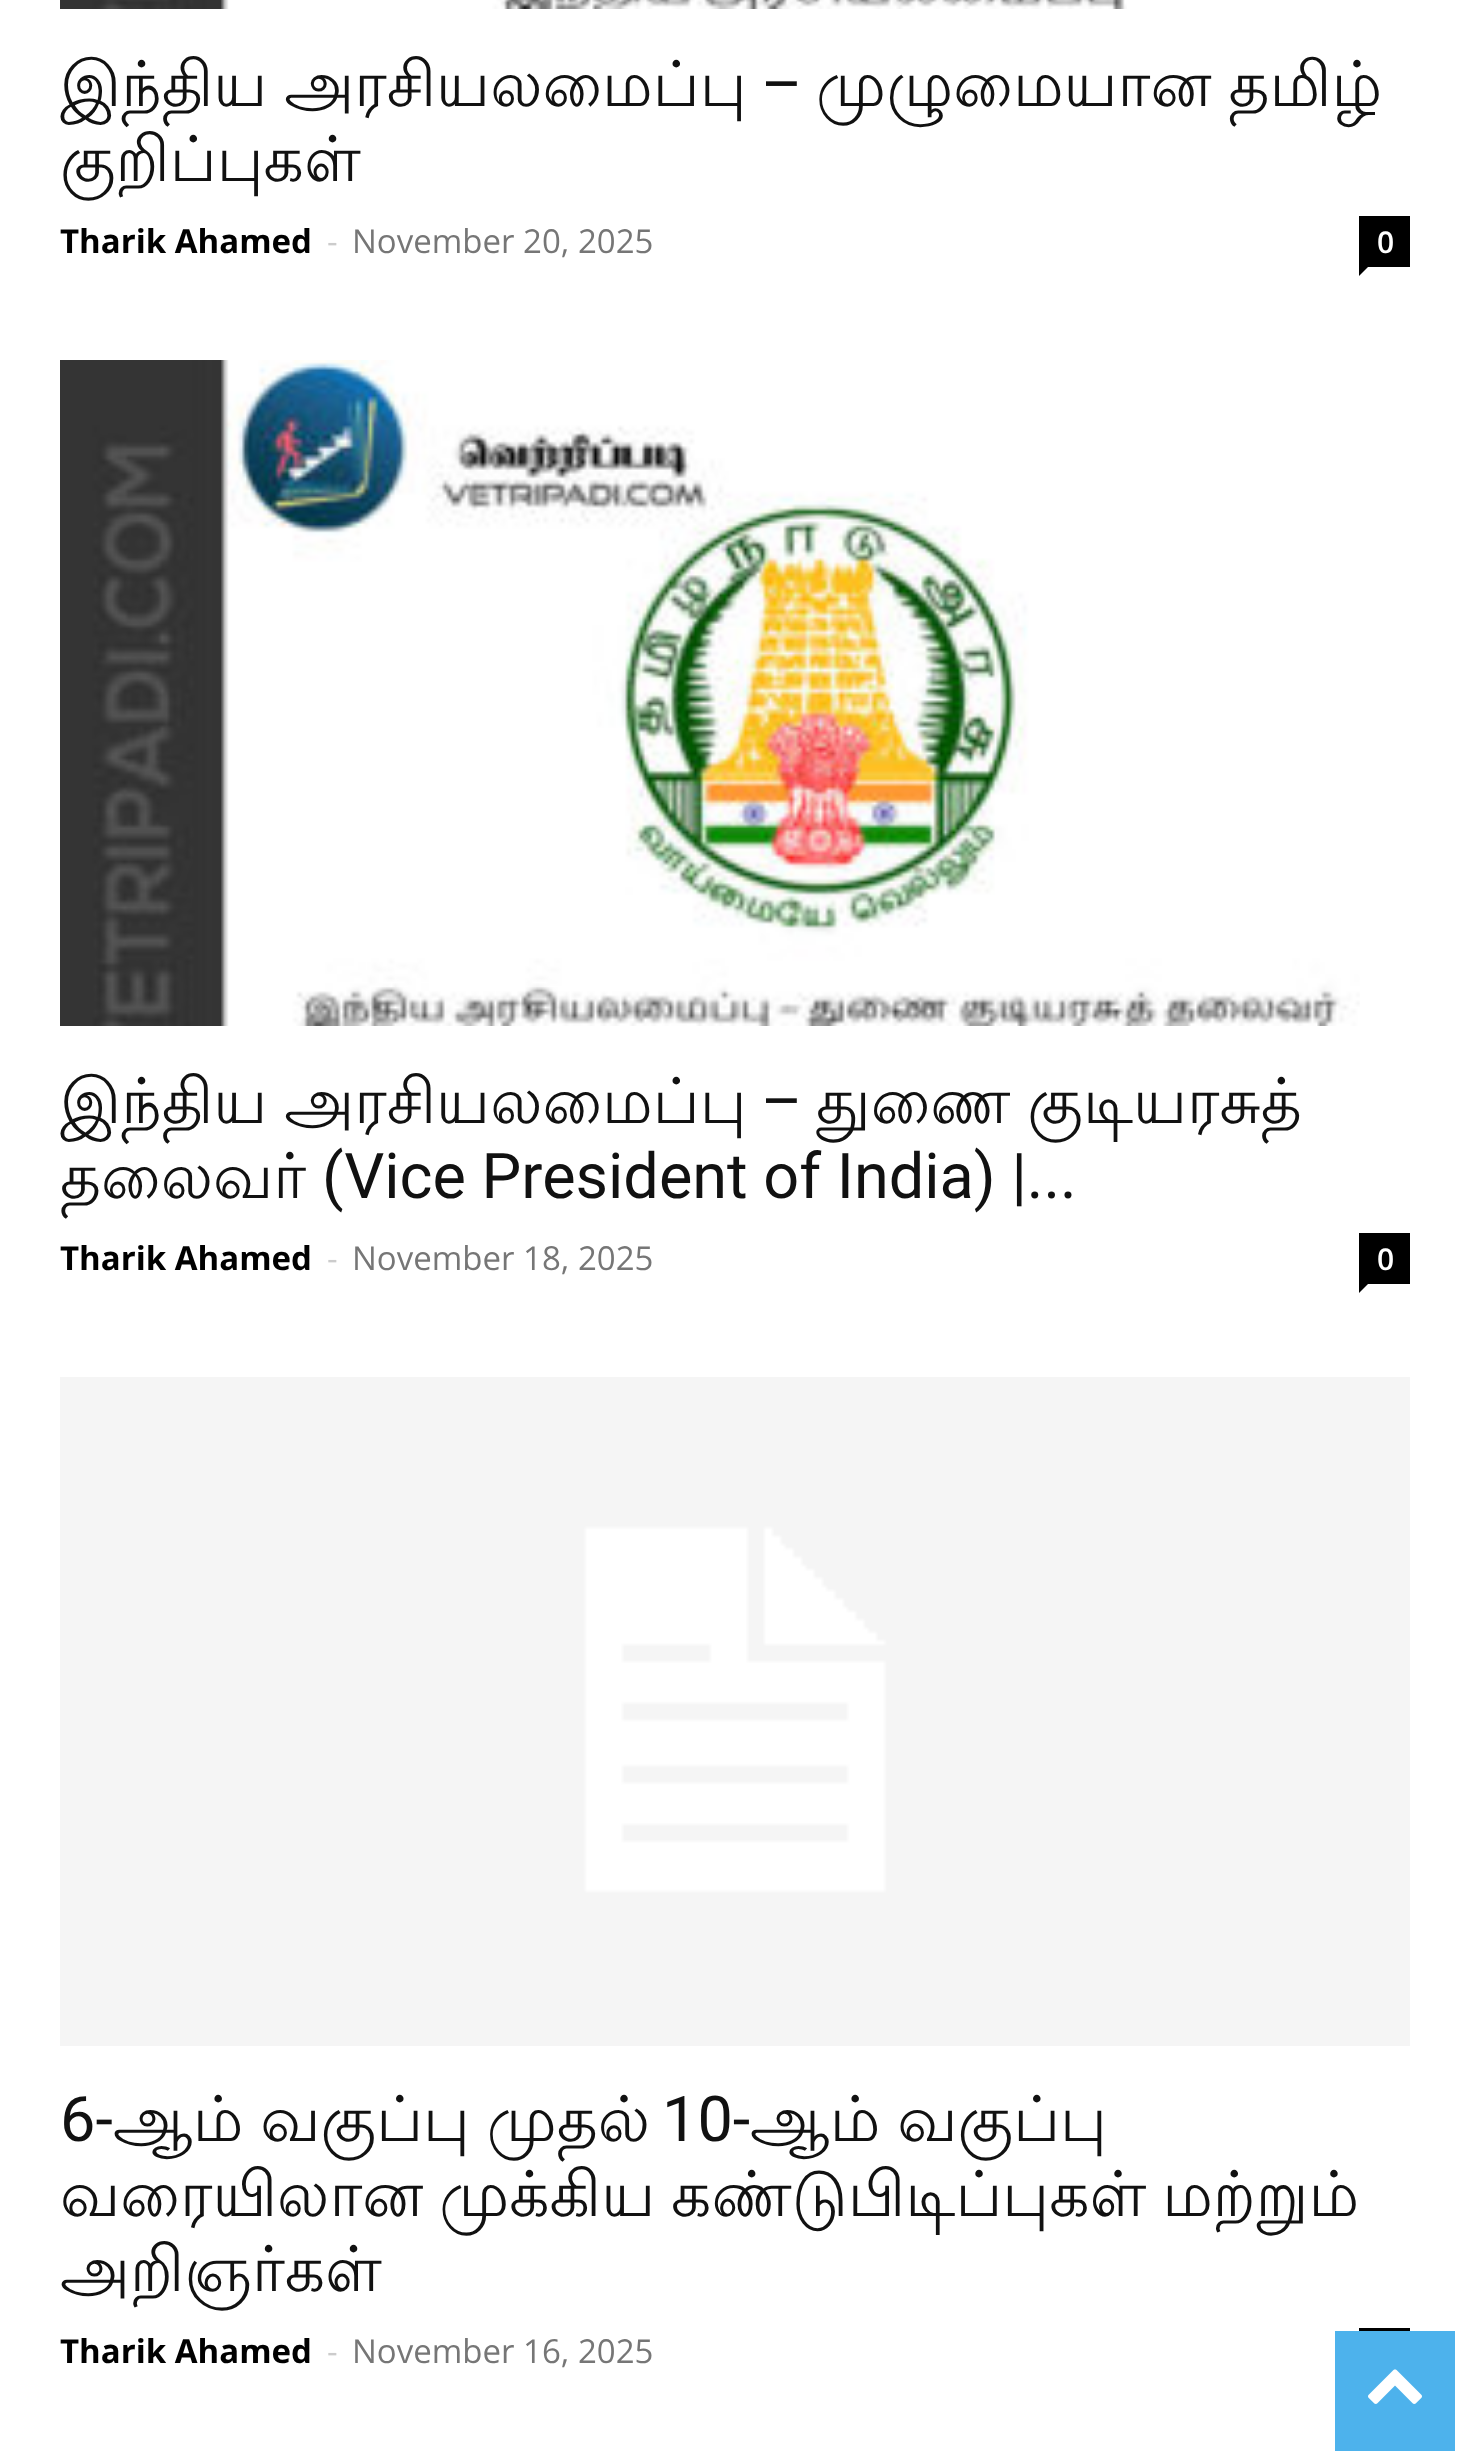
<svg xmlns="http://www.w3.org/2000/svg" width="1469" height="2461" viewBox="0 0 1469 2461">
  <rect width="100%" height="100%" fill="rgb(255,255,255)"/>
  <image x="60" y="0" width="1067" height="9" href="pic1.png"/>
  <text x="60" y="106" word-spacing="-2" font-family="Lohit Tamil" font-size="63" fill="rgb(17,17,17)">இந்திய அரசியலமைப்பு</text>
  <text x="761" y="106" font-family="Roboto" font-size="63" fill="rgb(17,17,17)">–</text>
  <g font-family="Lohit Tamil" font-size="63" fill="rgb(17,17,17)">
    <text x="816" y="106" word-spacing="-2">முழுமையான தமிழ்</text>
    <text x="60" y="181">குறிப்புகள்</text>
  </g>
  <text x="60" y="253" font-family="Open Sans" font-size="33" font-weight="bold" fill="rgb(0,0,0)">Tharik Ahamed</text>
  <text x="327" y="253" font-family="Open Sans" font-size="33" fill="rgb(204,204,204)">-</text>
  <text x="352" y="253" font-family="Open Sans" font-size="33" fill="rgb(118,118,118)">November 20, 2025</text>
  <rect x="1359" y="216" width="51" height="51" fill="rgb(0,0,0)"/>
  <text x="1377" y="253" font-family="Open Sans" font-size="30" font-weight="600" fill="rgb(255,255,255)">0</text>
  <path d="M1359 267H1368L1359 276Z" fill="rgb(0,0,0)"/>
  <image x="60" y="360" width="1300" height="666" href="pic2.png"/>
  <text x="60" y="1123" word-spacing="-2" font-family="Lohit Tamil" font-size="63" fill="rgb(17,17,17)">இந்திய அரசியலமைப்பு</text>
  <text x="761" y="1123" font-family="Roboto" font-size="63" fill="rgb(17,17,17)">–</text>
  <g font-family="Lohit Tamil" font-size="63" fill="rgb(17,17,17)">
    <text x="816" y="1123" word-spacing="-2">துணை குடியரசுத்</text>
    <text x="60" y="1198">தலைவர்</text>
  </g>
  <text x="322" y="1198" font-family="Roboto" font-size="63" fill="rgb(17,17,17)">(Vice President of India) |...</text>
  <text x="60" y="1270" font-family="Open Sans" font-size="33" font-weight="bold" fill="rgb(0,0,0)">Tharik Ahamed</text>
  <text x="327" y="1270" font-family="Open Sans" font-size="33" fill="rgb(204,204,204)">-</text>
  <text x="352" y="1270" font-family="Open Sans" font-size="33" fill="rgb(118,118,118)">November 18, 2025</text>
  <rect x="1359" y="1233" width="51" height="51" fill="rgb(0,0,0)"/>
  <text x="1377" y="1270" font-family="Open Sans" font-size="30" font-weight="600" fill="rgb(255,255,255)">0</text>
  <path d="M1359 1284H1368L1359 1293Z" fill="rgb(0,0,0)"/>
  <image x="60" y="1377" width="1350" height="669" href="pic3.png"/>
  <text x="60" y="2141" font-family="Roboto" font-size="63" fill="rgb(17,17,17)">6-</text>
  <text x="113" y="2141" word-spacing="-2" font-family="Lohit Tamil" font-size="63" fill="rgb(17,17,17)">ஆம் வகுப்பு முதல்</text>
  <text x="662" y="2141" font-family="Roboto" font-size="63" fill="rgb(17,17,17)">10-</text>
  <g font-family="Lohit Tamil" font-size="63" fill="rgb(17,17,17)">
    <text x="750" y="2141" word-spacing="-2">ஆம் வகுப்பு</text>
    <text>
      <tspan x="60" y="2216" word-spacing="-3">வரையிலான முக்கிய கண்டுபிடிப்புகள் மற்றும்</tspan>
      <tspan x="60" y="2291">அறிஞர்கள்</tspan>
    </text>
  </g>
  <rect x="1359" y="2328" width="51" height="3" fill="rgb(0,0,0)"/>
  <text x="60" y="2363" font-family="Open Sans" font-size="33" font-weight="bold" fill="rgb(0,0,0)">Tharik Ahamed</text>
  <text x="327" y="2363" font-family="Open Sans" font-size="33" fill="rgb(204,204,204)">-</text>
  <text x="352" y="2363" font-family="Open Sans" font-size="33" fill="rgb(118,118,118)">November 16, 2025</text>
  <rect x="1335" y="2331" width="120" height="120" fill="rgb(77,178,236)"/>
  <image x="1368" y="2369" width="54" height="35" href="pic4.png"/>
</svg>
